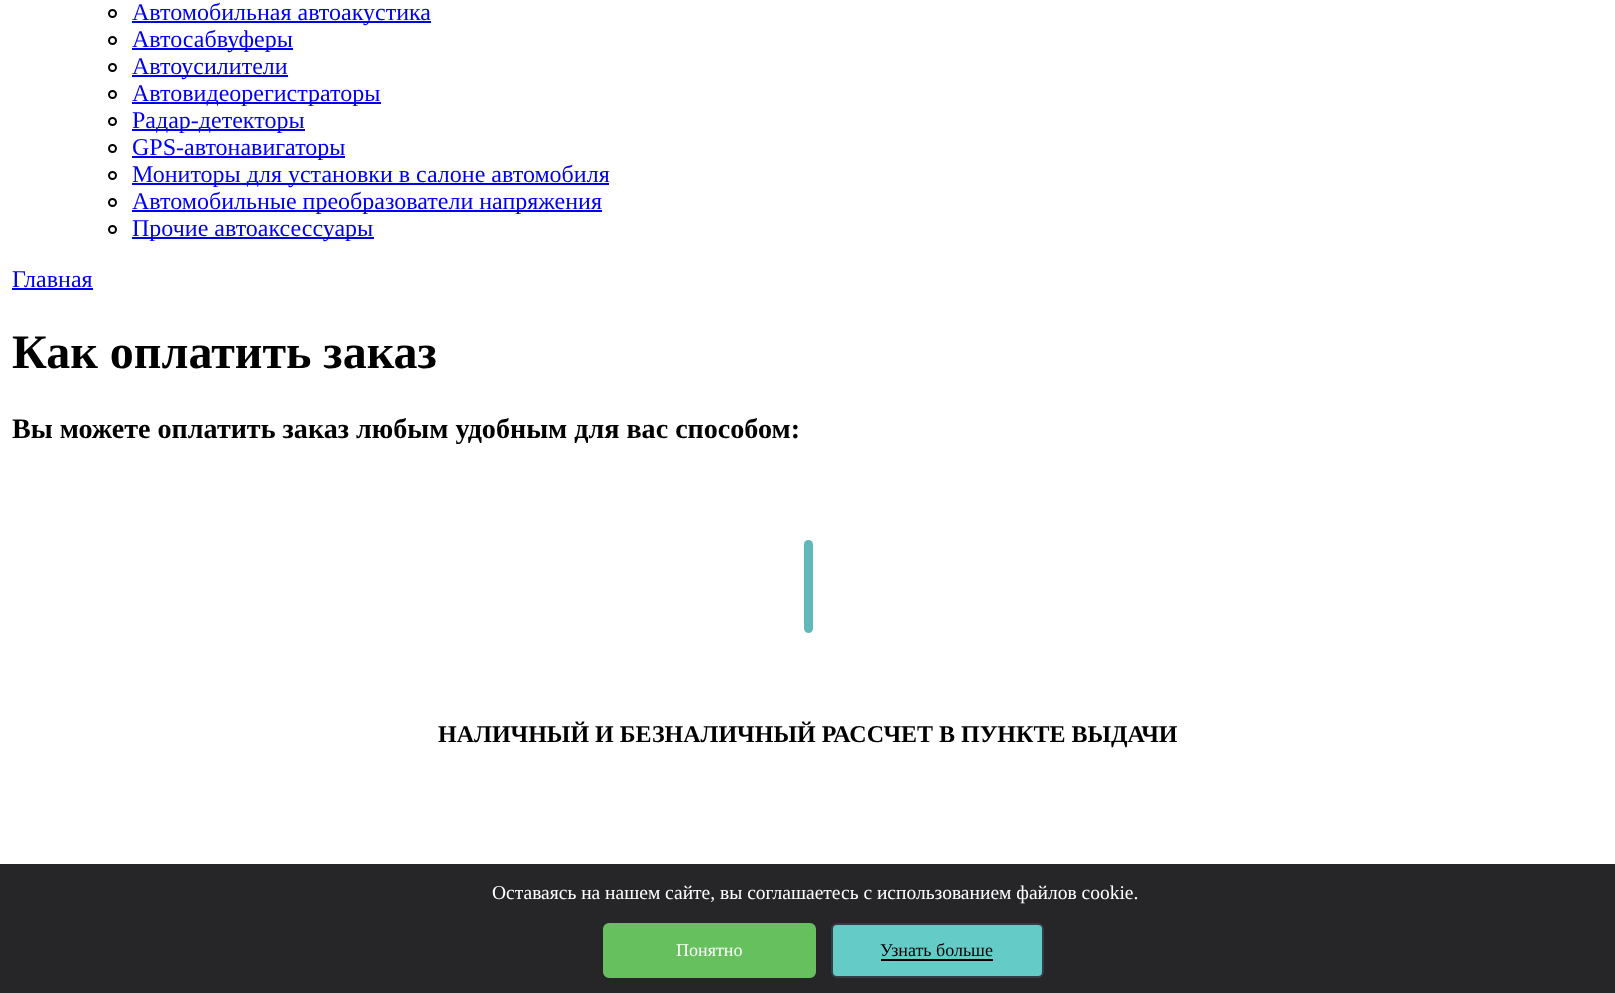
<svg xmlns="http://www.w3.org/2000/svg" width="1615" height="993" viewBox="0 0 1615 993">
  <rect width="100%" height="100%" fill="rgb(255,255,255)"/>
  <circle cx="112.5" cy="13.5" r="3.5" fill="none" stroke="rgb(0,0,0)" stroke-width="2"/>
  <rect x="132" y="21" width="299" height="2" fill="rgb(0,0,238)"/>
  <text x="132" y="20" font-family="Liberation Serif" font-size="24" fill="rgb(0,0,238)">Автомобильная автоакустика</text>
  <circle cx="112.5" cy="40.5" r="3.5" fill="none" stroke="rgb(0,0,0)" stroke-width="2"/>
  <rect x="132" y="48" width="161" height="2" fill="rgb(0,0,238)"/>
  <text x="132" y="47" font-family="Liberation Serif" font-size="24" fill="rgb(0,0,238)">Автосабвуферы</text>
  <circle cx="112.5" cy="67.5" r="3.5" fill="none" stroke="rgb(0,0,0)" stroke-width="2"/>
  <rect x="132" y="75" width="156" height="2" fill="rgb(0,0,238)"/>
  <text x="132" y="74" font-family="Liberation Serif" font-size="24" fill="rgb(0,0,238)">Автоусилители</text>
  <circle cx="112.5" cy="94.5" r="3.5" fill="none" stroke="rgb(0,0,0)" stroke-width="2"/>
  <rect x="132" y="102" width="249" height="2" fill="rgb(0,0,238)"/>
  <text x="132" y="101" font-family="Liberation Serif" font-size="24" fill="rgb(0,0,238)">Автовидеорегистраторы</text>
  <circle cx="112.5" cy="121.5" r="3.5" fill="none" stroke="rgb(0,0,0)" stroke-width="2"/>
  <rect x="132" y="129" width="173" height="2" fill="rgb(0,0,238)"/>
  <text x="132" y="128" font-family="Liberation Serif" font-size="24" fill="rgb(0,0,238)">Радар-детекторы</text>
  <circle cx="112.5" cy="148.5" r="3.5" fill="none" stroke="rgb(0,0,0)" stroke-width="2"/>
  <rect x="132" y="156" width="213" height="2" fill="rgb(0,0,238)"/>
  <text x="132" y="155" font-family="Liberation Serif" font-size="24" fill="rgb(0,0,238)">GPS-автонавигаторы</text>
  <circle cx="112.5" cy="175.5" r="3.5" fill="none" stroke="rgb(0,0,0)" stroke-width="2"/>
  <rect x="132" y="183" width="477" height="2" fill="rgb(0,0,238)"/>
  <text x="132" y="182" font-family="Liberation Serif" font-size="24" fill="rgb(0,0,238)">Мониторы для установки в салоне автомобиля</text>
  <circle cx="112.5" cy="202.5" r="3.5" fill="none" stroke="rgb(0,0,0)" stroke-width="2"/>
  <rect x="132" y="210" width="470" height="2" fill="rgb(0,0,238)"/>
  <text x="132" y="209" font-family="Liberation Serif" font-size="24" fill="rgb(0,0,238)">Автомобильные преобразователи напряжения</text>
  <circle cx="112.5" cy="229.5" r="3.5" fill="none" stroke="rgb(0,0,0)" stroke-width="2"/>
  <rect x="132" y="237" width="242" height="2" fill="rgb(0,0,238)"/>
  <g font-family="Liberation Serif" font-size="24" fill="rgb(0,0,238)">
    <text x="132" y="236">Прочие автоаксессуары</text>
    <text x="12" y="287">Главная</text>
  </g>
  <rect x="12" y="288" width="81" height="2" fill="rgb(0,0,238)"/>
  <text x="12" y="368" font-family="Liberation Serif" font-size="48" font-weight="bold" fill="rgb(0,0,0)">Как оплатить заказ</text>
  <text x="12" y="438" font-family="Liberation Serif" font-size="28.1" font-weight="bold" fill="rgb(0,0,0)">Вы можете оплатить заказ любым удобным для вас способом:</text>
  <rect x="804" y="540" width="9" height="93" rx="4.5" fill="rgb(94,185,184)"/>
  <text x="438" y="742" font-family="Liberation Serif" font-size="24" font-weight="bold" fill="rgb(0,0,0)">НАЛИЧНЫЙ И БЕЗНАЛИЧНЫЙ РАССЧЕТ В ПУНКТЕ ВЫДАЧИ</text>
  <rect x="0" y="864" width="1615" height="129" fill="rgb(38,38,40)"/>
  <text x="492" y="899" font-family="Liberation Serif" font-size="19.5" fill="rgb(255,255,255)">Оставаясь на нашем сайте, вы соглашаетесь с использованием файлов cookie.</text>
  <rect x="604" y="924" width="211" height="53" rx="5" fill="rgb(102,192,93)" stroke="rgb(102,192,93)" stroke-width="2"/>
  <text x="676" y="956" font-family="Liberation Serif" font-size="18" fill="rgb(255,255,255)">Понятно</text>
  <rect x="832" y="924" width="211" height="53" rx="5" fill="rgb(101,203,199)" stroke="rgb(51,63,70)" stroke-width="2"/>
  <text x="880" y="956" font-family="Liberation Serif" font-size="18" fill="rgb(0,0,0)">Узнать больше</text>
  <rect x="881" y="959" width="112" height="2" fill="rgb(0,0,0)"/>
</svg>
